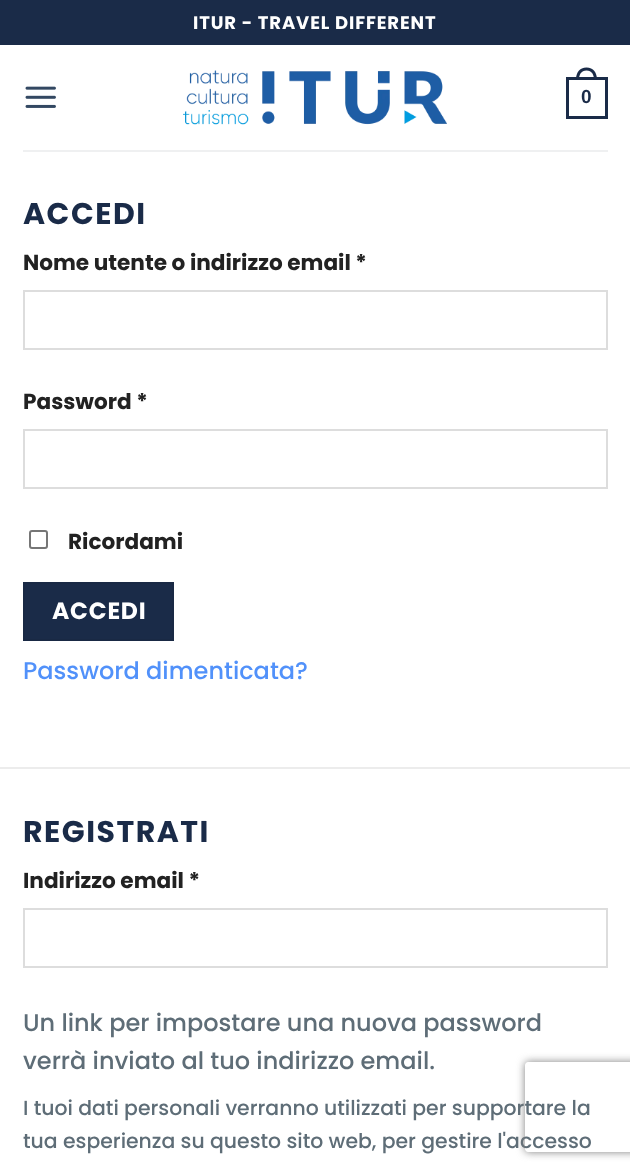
<svg xmlns="http://www.w3.org/2000/svg" width="630" height="1172" viewBox="0 0 630 1172">
  <defs>
    <clipPath id="clip1"><path d="M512 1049H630V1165H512ZM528 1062H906C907.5 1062 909 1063.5 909 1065V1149C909 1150.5 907.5 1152 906 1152H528C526.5 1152 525 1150.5 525 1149V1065C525 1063.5 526.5 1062 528 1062Z" clip-rule="evenodd"/></clipPath>
  </defs>
  <rect width="100%" height="100%" fill="rgb(255,255,255)"/>
  <rect x="0" y="0" width="630" height="45" fill="rgb(26,43,72)"/>
  <text x="193" y="29" font-family="Poppins" font-size="18" font-weight="bold" letter-spacing="0.9" fill="rgb(255,255,255)">ITUR - TRAVEL DIFFERENT</text>
  <image x="25" y="86" width="31" height="22" href="pic1.png"/>
  <image x="183" y="70" width="264" height="55" href="pic2.png"/>
  <rect x="567.5" y="78.5" width="39" height="39" fill="none" stroke="rgb(26,43,72)" stroke-width="3"/>
  <path d="M586.5 67.5C593.5 67.5 597 73 597 79.5H576C576 73 579.5 67.5 586.5 67.5ZM586.5 70.5C592 70.5 594 75 594 79.5H579C579 75 581 70.5 586.5 70.5Z" fill="rgb(26,43,72)" fill-rule="evenodd"/>
  <text x="581" y="103" font-family="Liberation Sans" font-size="19" font-weight="bold" fill="rgb(26,43,72)">0</text>
  <rect x="23" y="150" width="585" height="2" fill="rgb(239,240,241)"/>
  <rect x="0" y="767" width="630" height="2" fill="rgb(236,236,236)"/>
  <text x="23" y="224" font-family="Poppins" font-size="30" font-weight="bold" letter-spacing="1.5" fill="rgb(26,43,72)">ACCEDI</text>
  <text x="23" y="270" font-family="Poppins" font-size="21.6" font-weight="bold" fill="rgb(34,34,34)">Nome utente o indirizzo email *</text>
  <rect x="24" y="291" width="583" height="58" fill="none" stroke="rgb(221,221,221)" stroke-width="2"/>
  <text x="23" y="409" font-family="Poppins" font-size="21.6" font-weight="bold" fill="rgb(34,34,34)">Password *</text>
  <rect x="24" y="430" width="583" height="58" fill="none" stroke="rgb(221,221,221)" stroke-width="2"/>
  <rect x="30" y="531" width="17" height="17" rx="2" fill="none" stroke="rgb(118,118,118)" stroke-width="2"/>
  <text x="68" y="549" font-family="Poppins" font-size="21.6" font-weight="bold" fill="rgb(34,34,34)">Ricordami</text>
  <rect x="24" y="583" width="149" height="57" fill="rgb(26,43,72)" stroke="rgb(25,41,68)" stroke-width="2"/>
  <text x="52" y="619" font-family="Poppins" font-size="23.5" font-weight="bold" letter-spacing="0.75" fill="rgb(255,255,255)">ACCEDI</text>
  <text x="23" y="679" font-family="Poppins" font-size="24" font-weight="500" fill="rgb(81,145,250)">Password dimenticata?</text>
  <text x="23" y="842" font-family="Poppins" font-size="30" font-weight="bold" letter-spacing="1.5" fill="rgb(26,43,72)">REGISTRATI</text>
  <text x="23" y="888" font-family="Poppins" font-size="21.6" font-weight="bold" fill="rgb(34,34,34)">Indirizzo email *</text>
  <rect x="24" y="909" width="583" height="58" fill="none" stroke="rgb(221,221,221)" stroke-width="2"/>
  <g font-family="Poppins" font-size="24" font-weight="500" fill="rgb(94,109,119)">
    <text>
      <tspan x="23" y="1031">Un link per impostare una nuova password</tspan>
      <tspan x="23" y="1069">verrà inviato al tuo indirizzo email.</tspan>
    </text>
  </g>
  <g font-family="Poppins" font-size="20.4" font-weight="500" fill="rgb(94,109,119)">
    <text>
      <tspan x="23" y="1115">I tuoi dati personali verranno utilizzati per supportare la</tspan>
      <tspan x="23" y="1148">tua esperienza su questo sito web, per gestire l'accesso</tspan>
    </text>
  </g>
  <g clip-path="url(#clip1)">
    <rect x="525" y="1062" width="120" height="90" rx="3" fill="rgb(128,128,128)" filter="blur(4px)"/>
  </g>
</svg>
